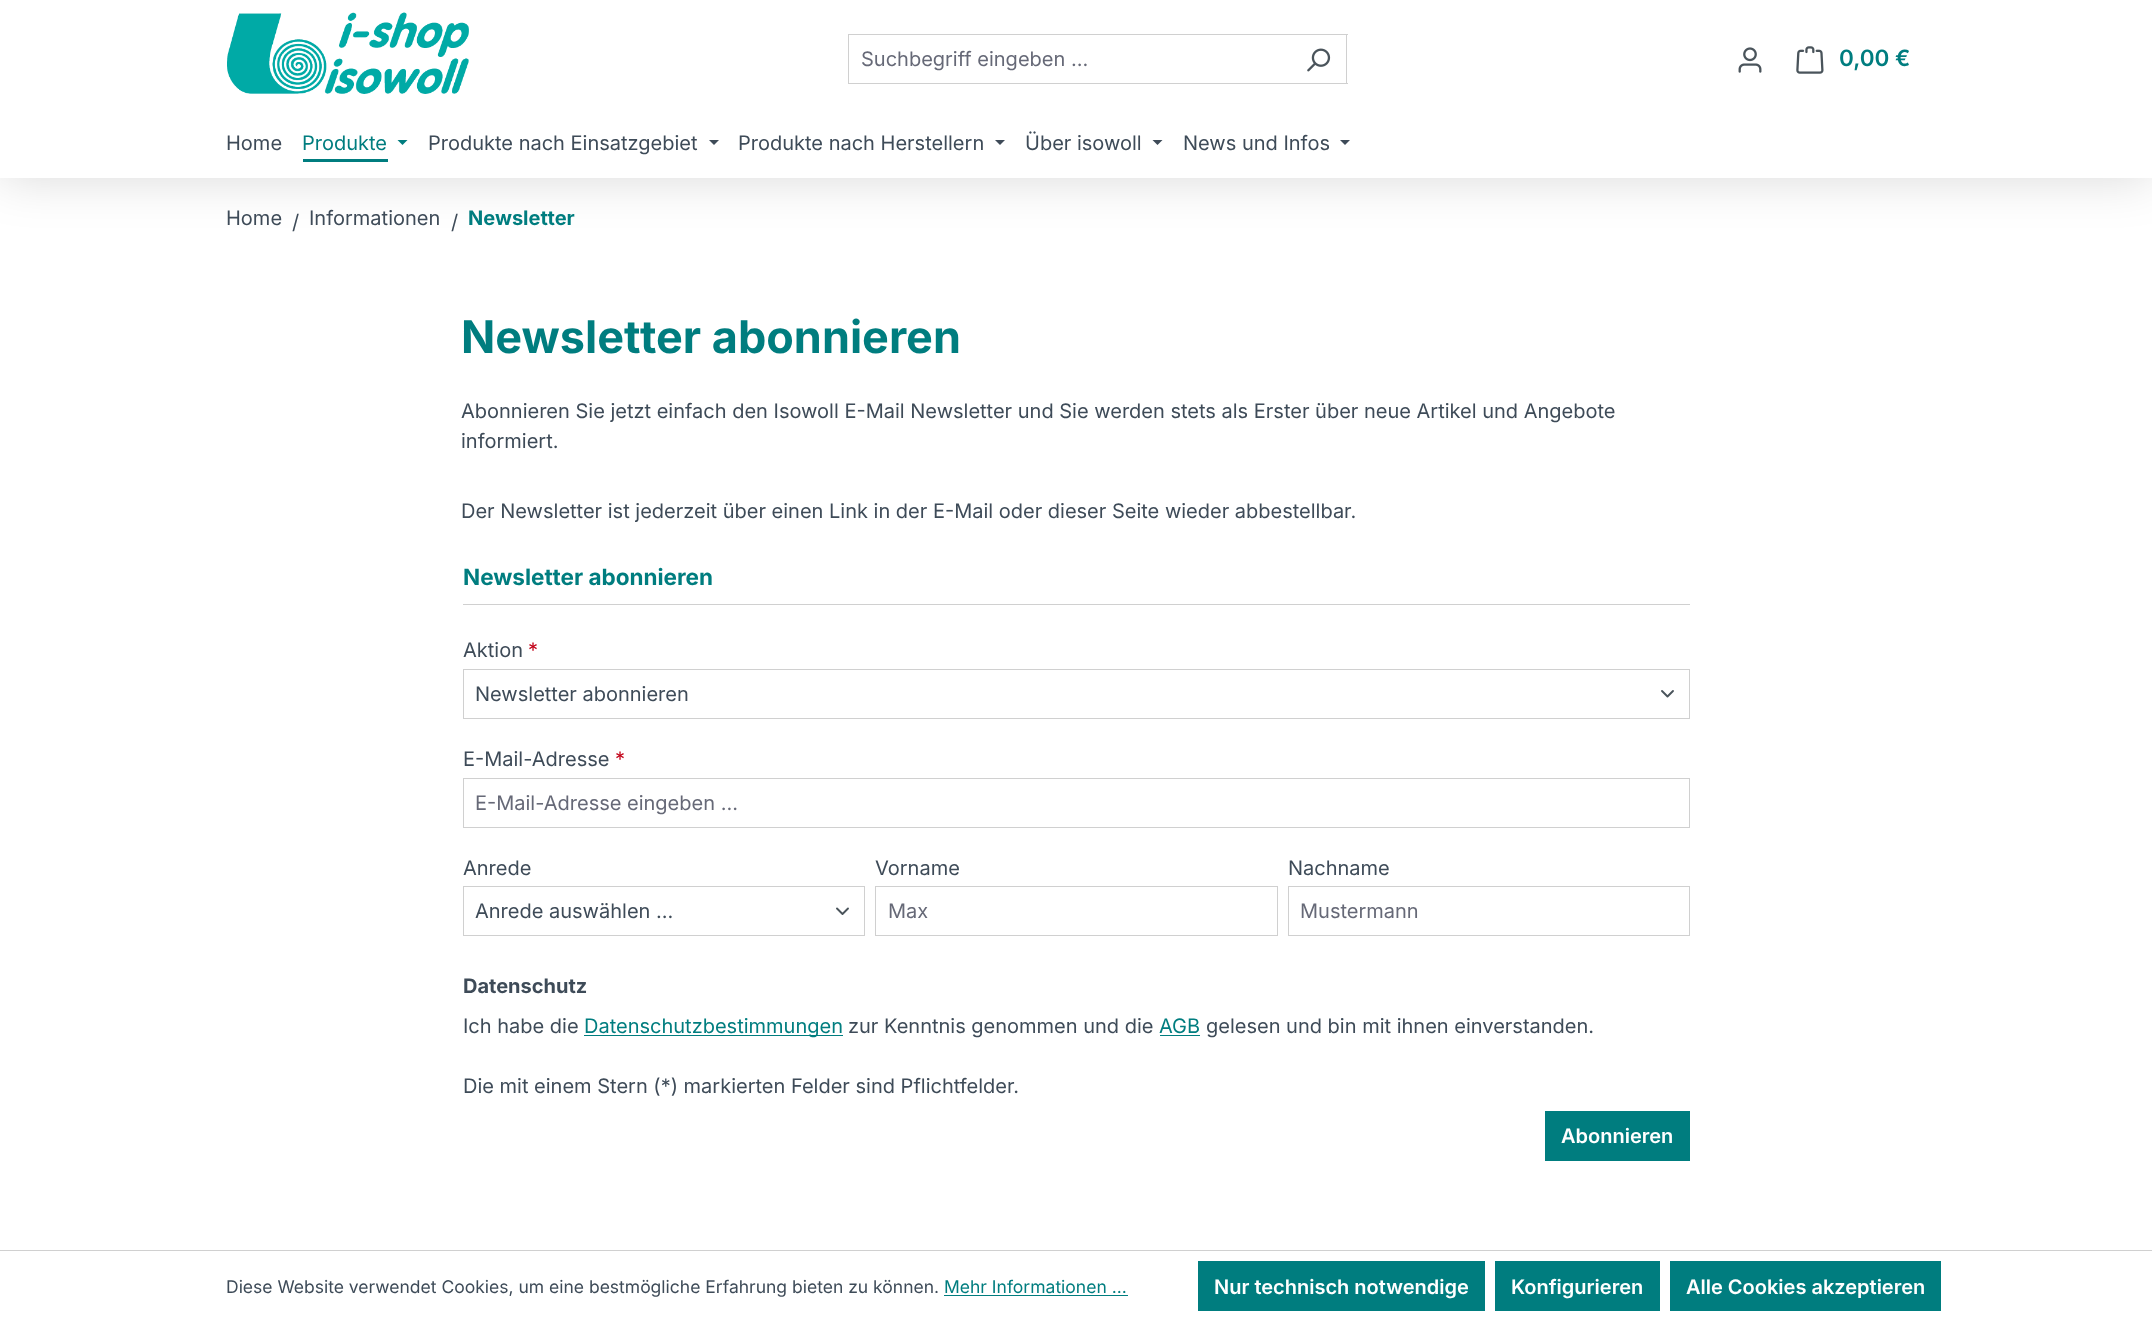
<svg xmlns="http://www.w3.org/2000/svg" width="2152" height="1321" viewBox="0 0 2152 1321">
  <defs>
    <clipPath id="clip1"><path d="M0 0H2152V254H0ZM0 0H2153V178H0Z" clip-rule="evenodd"/></clipPath>
  </defs>
  <rect width="100%" height="100%" fill="rgb(255,255,255)"/>
  <g clip-path="url(#clip1)">
    <rect x="0" y="0" width="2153" height="178" fill="rgba(0,0,0,0.15)" filter="blur(25px)"/>
  </g>
  <image x="227" y="12" width="242" height="82" href="pic1.png"/>
  <rect x="848" y="34" width="500" height="1" fill="rgb(208,208,208)"/>
  <rect x="848" y="83" width="442" height="1" fill="rgb(208,208,208)"/>
  <rect x="848" y="34" width="1" height="50" fill="rgb(208,208,208)"/>
  <text x="861" y="66" font-family="Inter" font-size="20" fill="rgb(102,105,119)">Suchbegriff eingeben ...</text>
  <rect x="1346" y="34" width="1" height="50" fill="rgb(208,208,208)"/>
  <rect x="1289" y="83" width="59" height="1" fill="rgb(208,208,208)"/>
  <image x="1307" y="48" width="24" height="24" href="pic2.png"/>
  <image x="1738" y="47" width="24" height="26" href="pic3.png"/>
  <image x="1796" y="46" width="28" height="28" href="pic4.png"/>
  <text x="1839" y="66" font-family="Inter" font-size="22.5" font-weight="600" fill="rgb(0,125,127)">0,00 €</text>
  <text x="226" y="150" font-family="Inter" font-size="20" fill="rgb(62,75,88)">Home</text>
  <text x="302" y="150" font-family="Inter" font-size="20" fill="rgb(0,125,127)">Produkte</text>
  <rect x="303" y="159" width="85" height="3" fill="rgb(0,125,127)"/>
  <path d="M397.5 140H407.5L402.5 145Z" fill="rgb(0,125,127)"/>
  <text x="428" y="150" font-family="Inter" font-size="20" fill="rgb(62,75,88)">Produkte nach Einsatzgebiet</text>
  <path d="M709 140H719L714 145Z" fill="rgb(62,75,88)"/>
  <text x="738" y="150" font-family="Inter" font-size="20" fill="rgb(62,75,88)">Produkte nach Herstellern</text>
  <path d="M995 140H1005L1000 145Z" fill="rgb(62,75,88)"/>
  <text x="1025" y="150" font-family="Inter" font-size="20" fill="rgb(62,75,88)">Über isowoll</text>
  <path d="M1152.5 140H1162.5L1157.5 145Z" fill="rgb(62,75,88)"/>
  <text x="1183" y="150" font-family="Inter" font-size="20" fill="rgb(62,75,88)">News und Infos</text>
  <path d="M1340 140H1350L1345 145Z" fill="rgb(62,75,88)"/>
  <g font-family="Inter" font-size="20" fill="rgb(62,75,88)">
    <text x="226" y="225">Home</text>
    <text x="292" y="229">/</text>
    <text x="309" y="225">Informationen</text>
    <text x="451" y="229">/</text>
  </g>
  <text x="468" y="225" font-family="Inter" font-size="20" font-weight="bold" fill="rgb(0,125,127)">Newsletter</text>
  <text x="461" y="353" font-family="Inter" font-size="45" font-weight="bold" fill="rgb(0,125,127)">Newsletter abonnieren</text>
  <g font-family="Inter" font-size="20" fill="rgb(62,75,88)">
    <text>
      <tspan x="461" y="418">Abonnieren Sie jetzt einfach den Isowoll E-Mail Newsletter und Sie werden stets als Erster über neue Artikel und Angebote</tspan>
      <tspan x="461" y="448">informiert.</tspan>
    </text>
    <text x="461" y="518">Der Newsletter ist jederzeit über einen Link in der E-Mail oder dieser Seite wieder abbestellbar.</text>
  </g>
  <rect x="463" y="604" width="1227" height="1" fill="rgb(208,208,208)"/>
  <text x="463" y="585" font-family="Inter" font-size="22.5" font-weight="bold" fill="rgb(0,125,127)">Newsletter abonnieren</text>
  <text x="463" y="657" font-family="Inter" font-size="20" fill="rgb(62,75,88)">Aktion</text>
  <text x="528" y="657" font-family="Inter" font-size="20" fill="rgb(194,0,23)">*</text>
  <path d="M1662 691L1667.5 696.5L1673 691" fill="none" stroke="rgb(74,84,91)" stroke-width="1.9" stroke-linecap="round" stroke-linejoin="round"/>
  <rect x="463.5" y="669.5" width="1226" height="49" fill="none" stroke="rgb(208,208,208)"/>
  <g font-family="Inter" font-size="20" fill="rgb(62,75,88)">
    <text x="475" y="701">Newsletter abonnieren</text>
    <text x="463" y="766">E-Mail-Adresse</text>
  </g>
  <text x="615" y="766" font-family="Inter" font-size="20" fill="rgb(194,0,23)">*</text>
  <rect x="463.5" y="778.5" width="1226" height="49" fill="none" stroke="rgb(208,208,208)"/>
  <text x="475" y="810" font-family="Inter" font-size="20" fill="rgb(102,105,119)">E-Mail-Adresse eingeben ...</text>
  <text x="463" y="875" font-family="Inter" font-size="20" fill="rgb(62,75,88)">Anrede</text>
  <path d="M837 908.5L842.5 914L848 908.5" fill="none" stroke="rgb(74,84,91)" stroke-width="1.9" stroke-linecap="round" stroke-linejoin="round"/>
  <rect x="463.5" y="886.5" width="401" height="49" fill="none" stroke="rgb(208,208,208)"/>
  <g font-family="Inter" font-size="20" fill="rgb(62,75,88)">
    <text x="475" y="918">Anrede auswählen ...</text>
    <text x="875" y="875">Vorname</text>
  </g>
  <rect x="875.5" y="886.5" width="402" height="49" fill="none" stroke="rgb(208,208,208)"/>
  <text x="888" y="918" font-family="Inter" font-size="20" fill="rgb(102,105,119)">Max</text>
  <text x="1288" y="875" font-family="Inter" font-size="20" fill="rgb(62,75,88)">Nachname</text>
  <rect x="1288.5" y="886.5" width="401" height="49" fill="none" stroke="rgb(208,208,208)"/>
  <text x="1300" y="918" font-family="Inter" font-size="20" fill="rgb(102,105,119)">Mustermann</text>
  <text x="463" y="993" font-family="Inter" font-size="20" font-weight="bold" fill="rgb(62,75,88)">Datenschutz</text>
  <text x="463" y="1033" font-family="Inter" font-size="20" fill="rgb(62,75,88)">Ich habe die</text>
  <rect x="584" y="1035" width="259" height="1" fill="rgb(0,125,127)"/>
  <text x="584" y="1033" font-family="Inter" font-size="20" fill="rgb(0,125,127)">Datenschutzbestimmungen</text>
  <text x="848" y="1033" font-family="Inter" font-size="20" fill="rgb(62,75,88)">zur Kenntnis genommen und die</text>
  <text x="1159" y="1033" font-family="Inter" font-size="20" fill="rgb(0,125,127)">AGB</text>
  <rect x="1160" y="1035" width="40" height="1" fill="rgb(0,125,127)"/>
  <g font-family="Inter" font-size="20" fill="rgb(62,75,88)">
    <text x="1206" y="1033">gelesen und bin mit ihnen einverstanden.</text>
    <text x="463" y="1093">Die mit einem Stern (*) markierten Felder sind Pflichtfelder.</text>
  </g>
  <rect x="1545" y="1111" width="145" height="50" fill="rgb(0,125,127)"/>
  <text x="1561" y="1143" font-family="Inter" font-size="20" font-weight="600" fill="rgb(255,255,255)">Abonnieren</text>
  <rect x="0" y="1250" width="2152" height="1" fill="rgb(208,208,208)"/>
  <text x="226" y="1293" font-family="Inter" font-size="17.5" fill="rgb(62,75,88)">Diese Website verwendet Cookies, um eine bestmögliche Erfahrung bieten zu können.</text>
  <text x="944" y="1293" font-family="Inter" font-size="17.5" fill="rgb(0,125,127)">Mehr Informationen ...</text>
  <rect x="944" y="1295" width="184" height="1" fill="rgb(0,125,127)"/>
  <rect x="1198" y="1261" width="287" height="50" fill="rgb(0,125,127)"/>
  <text x="1214" y="1294" font-family="Inter" font-size="20" font-weight="600" fill="rgb(255,255,255)">Nur technisch notwendige</text>
  <rect x="1495" y="1261" width="165" height="50" fill="rgb(0,125,127)"/>
  <text x="1511" y="1294" font-family="Inter" font-size="20" font-weight="600" fill="rgb(255,255,255)">Konfigurieren</text>
  <rect x="1670" y="1261" width="271" height="50" fill="rgb(0,125,127)"/>
  <text x="1686" y="1294" font-family="Inter" font-size="20" font-weight="600" fill="rgb(255,255,255)">Alle Cookies akzeptieren</text>
</svg>
